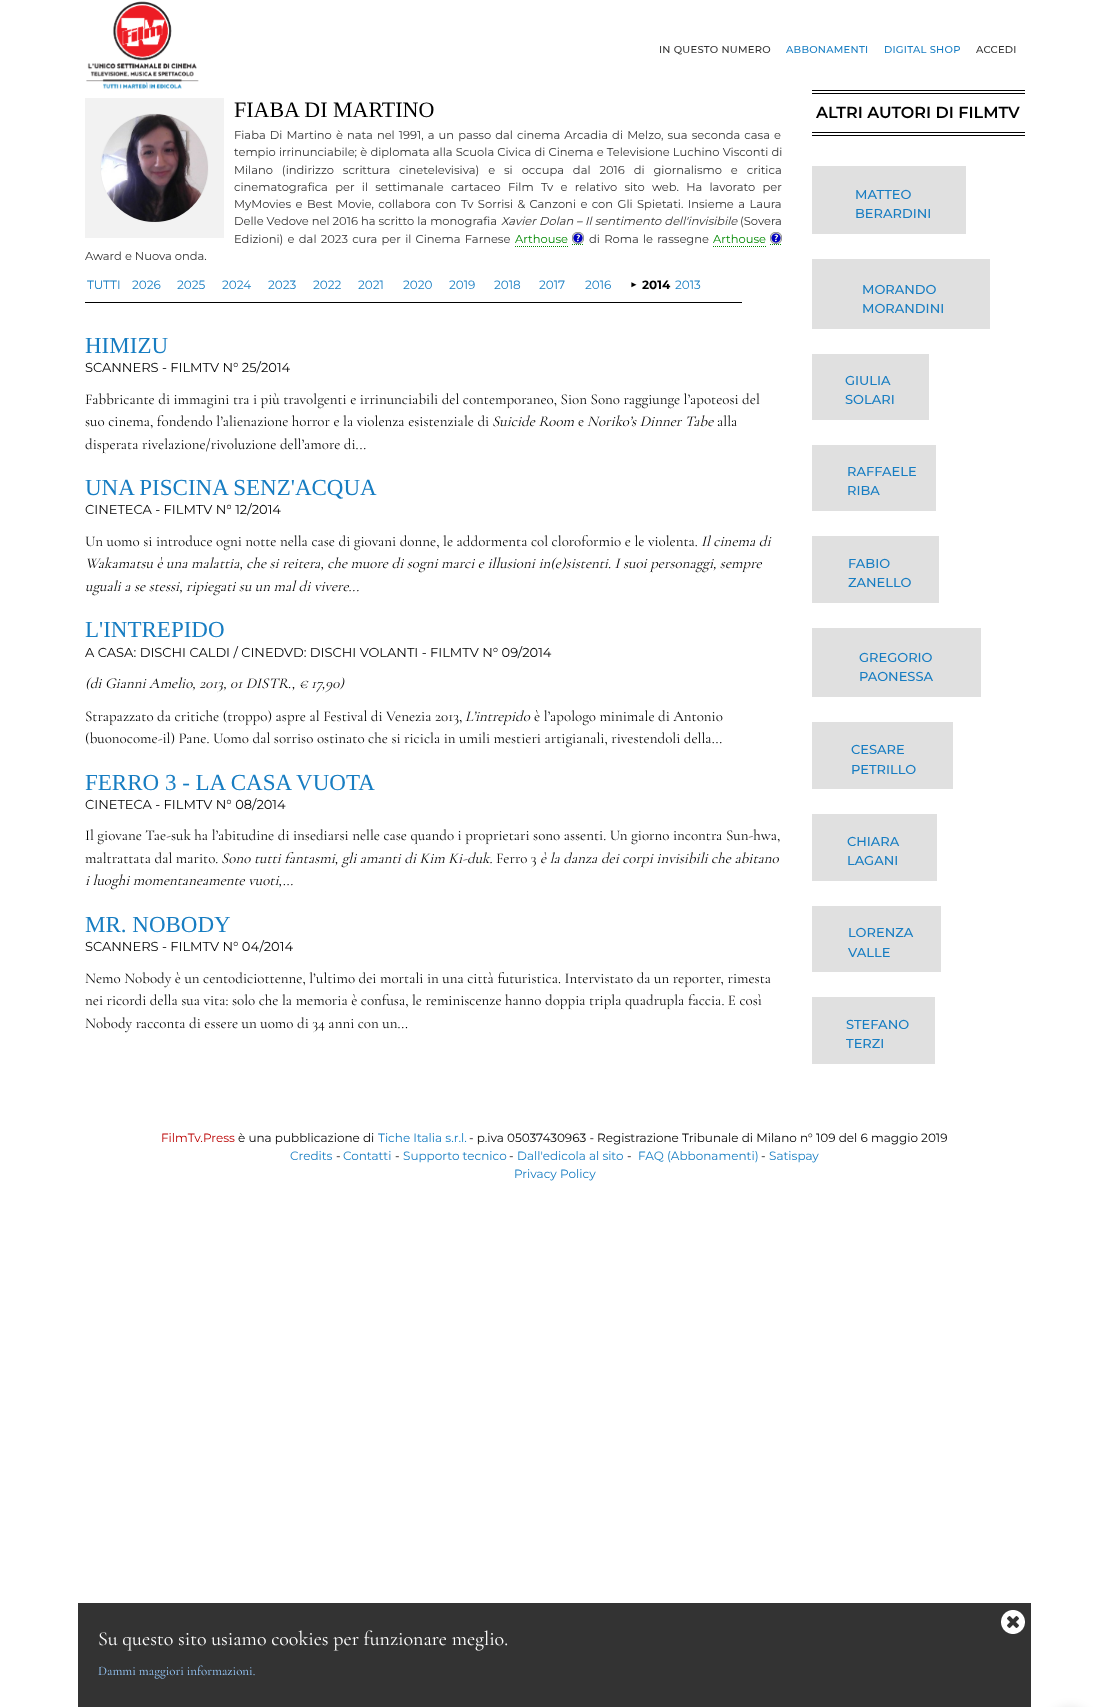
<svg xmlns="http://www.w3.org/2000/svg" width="1109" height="1707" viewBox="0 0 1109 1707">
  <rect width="100%" height="100%" fill="rgb(255,255,255)"/>
  <image x="86" y="1" width="113" height="88" href="pic1.png"/>
  <text x="659" y="53" font-family="Montserrat" font-size="10" font-weight="500" letter-spacing="0.25" fill="rgb(51,51,51)">IN QUESTO NUMERO</text>
  <g font-family="Montserrat" font-size="10" font-weight="500" letter-spacing="0.25" fill="rgb(23,125,194)">
    <text x="786" y="53">ABBONAMENTI</text>
    <text x="884" y="53">DIGITAL SHOP</text>
  </g>
  <text x="976" y="53" font-family="Montserrat" font-size="10" font-weight="500" letter-spacing="0.25" fill="rgb(51,51,51)">ACCEDI</text>
  <rect x="85" y="98" width="139" height="140" fill="rgb(242,242,242)"/>
  <rect x="100.5" y="113.5" width="108" height="109" rx="54" fill="none" stroke="rgb(238,238,238)"/>
  <image x="101" y="114" width="107" height="108" href="pic2.png"/>
  <text x="234" y="117" font-family="Liberation Serif" font-size="22" fill="rgb(0,0,0)">FIABA DI MARTINO</text>
  <g font-family="Montserrat" font-size="11.5" fill="rgb(51,51,51)">
    <text>
      <tspan x="234" y="139" word-spacing="1.1">Fiaba Di Martino è nata nel 1991, a un passo dal cinema Arcadia di Melzo, sua seconda casa e</tspan>
      <tspan x="234" y="156" word-spacing="0.2">tempio irrinunciabile; è diplomata alla Scuola Civica di Cinema e Televisione Luchino Visconti di</tspan>
      <tspan x="234" y="174" word-spacing="5.9">Milano (indirizzo scrittura cinetelevisiva) e si occupa dal 2016 di giornalismo e critica</tspan>
      <tspan x="234" y="191" word-spacing="4.25">cinematografica per il settimanale cartaceo Film Tv e relativo sito web. Ha lavorato per</tspan>
      <tspan x="234" y="208" word-spacing="1.4">MyMovies e Best Movie, collabora con Tv Sorrisi &amp; Canzoni e con Gli Spietati. Insieme a Laura</tspan>
      <tspan x="234" y="225">Delle Vedove nel 2016 ha scritto la monografia</tspan>
    </text>
  </g>
  <text x="501" y="225" font-family="Montserrat" font-size="11.5" font-style="italic" fill="rgb(51,51,51)">Xavier Dolan – Il sentimento dell'invisibile</text>
  <g font-family="Montserrat" font-size="11.5" fill="rgb(51,51,51)">
    <text x="740" y="225">(Sovera</text>
    <text x="234" y="243" word-spacing="1.25">Edizioni) e dal 2023 cura per il Cinema Farnese</text>
  </g>
  <text x="515" y="243" font-family="Montserrat" font-size="11.5" fill="rgb(0,136,0)">Arthouse</text>
  <path d="M515 246.5H568" fill="none" stroke="rgb(0,136,0)" stroke-dasharray="1 1"/>
  <path d="M572 244.5H584" fill="none" stroke="rgb(0,136,0)" stroke-dasharray="1 1"/>
  <image x="572" y="232" width="12" height="12" href="pic3.png"/>
  <text x="589" y="243" word-spacing="1.25" font-family="Montserrat" font-size="11.5" fill="rgb(51,51,51)">di Roma le rassegne</text>
  <text x="713" y="243" font-family="Montserrat" font-size="11.5" fill="rgb(0,136,0)">Arthouse</text>
  <path d="M713 246.5H766" fill="none" stroke="rgb(0,136,0)" stroke-dasharray="1 1"/>
  <path d="M770 244.5H782" fill="none" stroke="rgb(0,136,0)" stroke-dasharray="1 1"/>
  <image x="770" y="232" width="12" height="12" href="pic3.png"/>
  <text x="85" y="260" font-family="Montserrat" font-size="11.5" fill="rgb(51,51,51)">Award e Nuova onda.</text>
  <rect x="85" y="302" width="657" height="1" fill="rgb(0,0,0)"/>
  <g font-family="Montserrat" font-size="12" fill="rgb(23,125,194)">
    <text x="87" y="289">TUTTI</text>
    <text x="132" y="289">2026</text>
    <text x="177" y="289">2025</text>
    <text x="222" y="289">2024</text>
    <text x="268" y="289">2023</text>
    <text x="313" y="289">2022</text>
    <text x="358" y="289">2021</text>
    <text x="403" y="289">2020</text>
    <text x="449" y="289">2019</text>
    <text x="494" y="289">2018</text>
    <text x="539" y="289">2017</text>
    <text x="585" y="289">2016</text>
  </g>
  <text x="630" y="288" font-family="'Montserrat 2'" font-size="12" font-weight="bold" fill="rgb(0,0,0)">▶</text>
  <text x="642" y="289" font-family="Montserrat" font-size="12" font-weight="bold" fill="rgb(0,0,0)">2014</text>
  <text x="675" y="289" font-family="Montserrat" font-size="12" fill="rgb(23,125,194)">2013</text>
  <text x="85" y="353" font-family="Liberation Serif" font-size="23" fill="rgb(23,125,194)">HIMIZU</text>
  <text x="85" y="372" font-family="Montserrat" font-size="13" fill="rgb(0,0,0)">SCANNERS - FILMTV N° 25/2014</text>
  <g font-family="Cormorant Garamond" font-size="15" fill="rgb(0,0,0)">
    <text>
      <tspan x="85" y="404">Fabbricante di immagini tra i più travolgenti e irrinunciabili del contemporaneo, Sion Sono raggiunge l’apoteosi del</tspan>
      <tspan x="85" y="426">suo cinema, fondendo l’alienazione horror e la violenza esistenziale di</tspan>
    </text>
  </g>
  <text x="492" y="426" font-family="Cormorant Garamond" font-size="15" font-style="italic" fill="rgb(0,0,0)">Suicide Room</text>
  <text x="578" y="426" font-family="Cormorant Garamond" font-size="15" fill="rgb(0,0,0)">e</text>
  <text x="587" y="426" font-family="Cormorant Garamond" font-size="15" font-style="italic" fill="rgb(0,0,0)">Noriko’s Dinner Tabe</text>
  <g font-family="Cormorant Garamond" font-size="15" fill="rgb(0,0,0)">
    <text x="717" y="426">alla</text>
    <text x="85" y="449">disperata rivelazione/rivoluzione dell’amore di...</text>
  </g>
  <text x="85" y="495" font-family="Liberation Serif" font-size="23" fill="rgb(23,125,194)">UNA PISCINA SENZ'ACQUA</text>
  <text x="85" y="514" font-family="Montserrat" font-size="13" fill="rgb(0,0,0)">CINETECA - FILMTV N° 12/2014</text>
  <text x="85" y="546" font-family="Cormorant Garamond" font-size="15" fill="rgb(0,0,0)">Un uomo si introduce ogni notte nella case di giovani donne, le addormenta col cloroformio e le violenta.</text>
  <g font-family="Cormorant Garamond" font-size="15" font-style="italic" fill="rgb(0,0,0)">
    <text x="701" y="546">Il cinema di</text>
    <text>
      <tspan x="85" y="568">Wakamatsu è una malattia, che si reitera, che muore di sogni marci e illusioni in(e)sistenti. I suoi personaggi, sempre</tspan>
      <tspan x="85" y="591">uguali a se stessi, ripiegati su un mal di vivere...</tspan>
    </text>
  </g>
  <text x="85" y="637" font-family="Liberation Serif" font-size="23" fill="rgb(23,125,194)">L'INTREPIDO</text>
  <text x="85" y="657" font-family="Montserrat" font-size="13" fill="rgb(0,0,0)">A CASA: DISCHI CALDI / CINEDVD: DISCHI VOLANTI - FILMTV N° 09/2014</text>
  <text x="85" y="688" font-family="Cormorant Garamond" font-size="15" font-style="italic" fill="rgb(0,0,0)">(di Gianni Amelio, 2013, 01 DISTR., € 17,90)</text>
  <text x="85" y="721" font-family="Cormorant Garamond" font-size="15" fill="rgb(0,0,0)">Strapazzato da critiche (troppo) aspre al Festival di Venezia 2013,</text>
  <text x="465" y="721" font-family="Cormorant Garamond" font-size="15" font-style="italic" fill="rgb(0,0,0)">L’intrepido</text>
  <g font-family="Cormorant Garamond" font-size="15" fill="rgb(0,0,0)">
    <text x="534" y="721">è l’apologo minimale di Antonio</text>
    <text x="85" y="743">(buonocome-il) Pane. Uomo dal sorriso ostinato che si ricicla in umili mestieri artigianali, rivestendoli della...</text>
  </g>
  <text x="85" y="790" font-family="Liberation Serif" font-size="23" fill="rgb(23,125,194)">FERRO 3 - LA CASA VUOTA</text>
  <text x="85" y="809" font-family="Montserrat" font-size="13" fill="rgb(0,0,0)">CINETECA - FILMTV N° 08/2014</text>
  <g font-family="Cormorant Garamond" font-size="15" fill="rgb(0,0,0)">
    <text>
      <tspan x="85" y="840">Il giovane Tae-suk ha l’abitudine di insediarsi nelle case quando i proprietari sono assenti. Un giorno incontra Sun-hwa,</tspan>
      <tspan x="85" y="863">maltrattata dal marito.</tspan>
    </text>
  </g>
  <text x="221" y="863" font-family="Cormorant Garamond" font-size="15" font-style="italic" fill="rgb(0,0,0)">Sono tutti fantasmi, gli amanti di Kim Ki-duk.</text>
  <text x="496" y="863" font-family="Cormorant Garamond" font-size="15" fill="rgb(0,0,0)">Ferro 3</text>
  <g font-family="Cormorant Garamond" font-size="15" font-style="italic" fill="rgb(0,0,0)">
    <text x="540" y="863">è la danza dei corpi invisibili che abitano</text>
    <text x="85" y="885">i luoghi momentaneamente vuoti,...</text>
  </g>
  <text x="85" y="932" font-family="Liberation Serif" font-size="23" fill="rgb(23,125,194)">MR. NOBODY</text>
  <text x="85" y="951" font-family="Montserrat" font-size="13" fill="rgb(0,0,0)">SCANNERS - FILMTV N° 04/2014</text>
  <g font-family="Cormorant Garamond" font-size="15" fill="rgb(0,0,0)">
    <text>
      <tspan x="85" y="983">Nemo Nobody è un centodiciottenne, l’ultimo dei mortali in una città futuristica. Intervistato da un reporter, rimesta</tspan>
      <tspan x="85" y="1005">nei ricordi della sua vita: solo che la memoria è confusa, le reminiscenze hanno doppia tripla quadrupla faccia. E così</tspan>
      <tspan x="85" y="1028">Nobody racconta di essere un uomo di 34 anni con un...</tspan>
    </text>
  </g>
  <rect x="812" y="90" width="213" height="1" fill="rgb(0,0,0)"/>
  <rect x="812" y="93" width="213" height="1" fill="rgb(0,0,0)"/>
  <rect x="812" y="132" width="213" height="1" fill="rgb(0,0,0)"/>
  <rect x="812" y="135" width="213" height="1" fill="rgb(0,0,0)"/>
  <text x="816" y="118" font-family="Montserrat" font-size="16" font-weight="600" fill="rgb(0,0,0)">ALTRI AUTORI DI FILMTV</text>
  <rect x="812" y="166" width="154" height="68" fill="rgb(224,224,224)"/>
  <g font-family="Montserrat" font-size="13" font-weight="500" fill="rgb(23,125,194)">
    <text>
      <tspan x="855" y="199">MATTEO</tspan>
      <tspan x="855" y="218">BERARDINI</tspan>
    </text>
  </g>
  <rect x="812" y="259" width="178" height="70" fill="rgb(224,224,224)"/>
  <g font-family="Montserrat" font-size="13" font-weight="500" fill="rgb(23,125,194)">
    <text>
      <tspan x="862" y="294">MORANDO</tspan>
      <tspan x="862" y="313">MORANDINI</tspan>
    </text>
  </g>
  <rect x="812" y="354" width="117" height="66" fill="rgb(224,224,224)"/>
  <g font-family="Montserrat" font-size="13" font-weight="500" fill="rgb(23,125,194)">
    <text>
      <tspan x="845" y="385">GIULIA</tspan>
      <tspan x="845" y="404">SOLARI</tspan>
    </text>
  </g>
  <rect x="812" y="445" width="124" height="66" fill="rgb(224,224,224)"/>
  <g font-family="Montserrat" font-size="13" font-weight="500" fill="rgb(23,125,194)">
    <text>
      <tspan x="847" y="476">RAFFAELE</tspan>
      <tspan x="847" y="495">RIBA</tspan>
    </text>
  </g>
  <rect x="812" y="536" width="127" height="67" fill="rgb(224,224,224)"/>
  <g font-family="Montserrat" font-size="13" font-weight="500" fill="rgb(23,125,194)">
    <text>
      <tspan x="848" y="568">FABIO</tspan>
      <tspan x="848" y="587">ZANELLO</tspan>
    </text>
  </g>
  <rect x="812" y="628" width="169" height="69" fill="rgb(224,224,224)"/>
  <g font-family="Montserrat" font-size="13" font-weight="500" fill="rgb(23,125,194)">
    <text>
      <tspan x="859" y="662">GREGORIO</tspan>
      <tspan x="859" y="681">PAONESSA</tspan>
    </text>
  </g>
  <rect x="812" y="722" width="141" height="67" fill="rgb(224,224,224)"/>
  <g font-family="Montserrat" font-size="13" font-weight="500" fill="rgb(23,125,194)">
    <text>
      <tspan x="851" y="754">CESARE</tspan>
      <tspan x="851" y="774">PETRILLO</tspan>
    </text>
  </g>
  <rect x="812" y="814" width="125" height="67" fill="rgb(224,224,224)"/>
  <g font-family="Montserrat" font-size="13" font-weight="500" fill="rgb(23,125,194)">
    <text>
      <tspan x="847" y="846">CHIARA</tspan>
      <tspan x="847" y="865">LAGANI</tspan>
    </text>
  </g>
  <rect x="812" y="906" width="129" height="66" fill="rgb(224,224,224)"/>
  <g font-family="Montserrat" font-size="13" font-weight="500" fill="rgb(23,125,194)">
    <text>
      <tspan x="848" y="937">LORENZA</tspan>
      <tspan x="848" y="957">VALLE</tspan>
    </text>
  </g>
  <rect x="812" y="997" width="123" height="67" fill="rgb(224,224,224)"/>
  <g font-family="Montserrat" font-size="13" font-weight="500" fill="rgb(23,125,194)">
    <text>
      <tspan x="846" y="1029">STEFANO</tspan>
      <tspan x="846" y="1048">TERZI</tspan>
    </text>
  </g>
  <text x="161" y="1142" font-family="Montserrat" font-size="12" fill="rgb(186,0,0)">FilmTv.Press</text>
  <text x="238" y="1142" font-family="Montserrat" font-size="12" fill="rgb(0,0,0)">è una pubblicazione di</text>
  <text x="378" y="1142" font-family="Montserrat" font-size="12" fill="rgb(23,125,194)">Tiche Italia s.r.l.</text>
  <text x="469" y="1142" font-family="Montserrat" font-size="12" fill="rgb(0,0,0)">- p.iva 05037430963 - Registrazione Tribunale di Milano n° 109 del 6 maggio 2019</text>
  <text x="290" y="1160" font-family="Montserrat" font-size="12" fill="rgb(23,125,194)">Credits</text>
  <text x="336" y="1160" font-family="Montserrat" font-size="12" fill="rgb(0,0,0)">-</text>
  <text x="343" y="1160" font-family="Montserrat" font-size="12" fill="rgb(23,125,194)">Contatti</text>
  <text x="395" y="1160" font-family="Montserrat" font-size="12" fill="rgb(0,0,0)">-</text>
  <text x="403" y="1160" font-family="Montserrat" font-size="12" fill="rgb(23,125,194)">Supporto tecnico</text>
  <text x="509" y="1160" font-family="Montserrat" font-size="12" fill="rgb(0,0,0)">-</text>
  <text x="517" y="1160" font-family="Montserrat" font-size="12" fill="rgb(23,125,194)">Dall'edicola al sito</text>
  <text x="627" y="1160" font-family="Montserrat" font-size="12" fill="rgb(0,0,0)">-</text>
  <text x="638" y="1160" font-family="Montserrat" font-size="12" fill="rgb(23,125,194)">FAQ (Abbonamenti)</text>
  <text x="761" y="1160" font-family="Montserrat" font-size="12" fill="rgb(0,0,0)">-</text>
  <g font-family="Montserrat" font-size="12" fill="rgb(23,125,194)">
    <text x="769" y="1160">Satispay</text>
    <text x="514" y="1178">Privacy Policy</text>
  </g>
  <rect x="1050" y="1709" width="40" height="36" rx="20" fill="rgba(0,0,0,0.14)" filter="blur(6px)"/>
  <rect x="78" y="1603" width="953" height="104" fill="rgb(51,51,51)"/>
  <image x="1001" y="1610" width="24" height="24" href="pic4.png"/>
  <text x="98" y="1645" font-family="Cormorant Garamond" font-size="20" fill="rgb(255,255,255)">Su questo sito usiamo cookies per funzionare meglio.</text>
  <text x="98" y="1675" font-family="Cormorant Garamond" font-size="13" fill="rgb(153,204,255)">Dammi maggiori informazioni.</text>
</svg>
